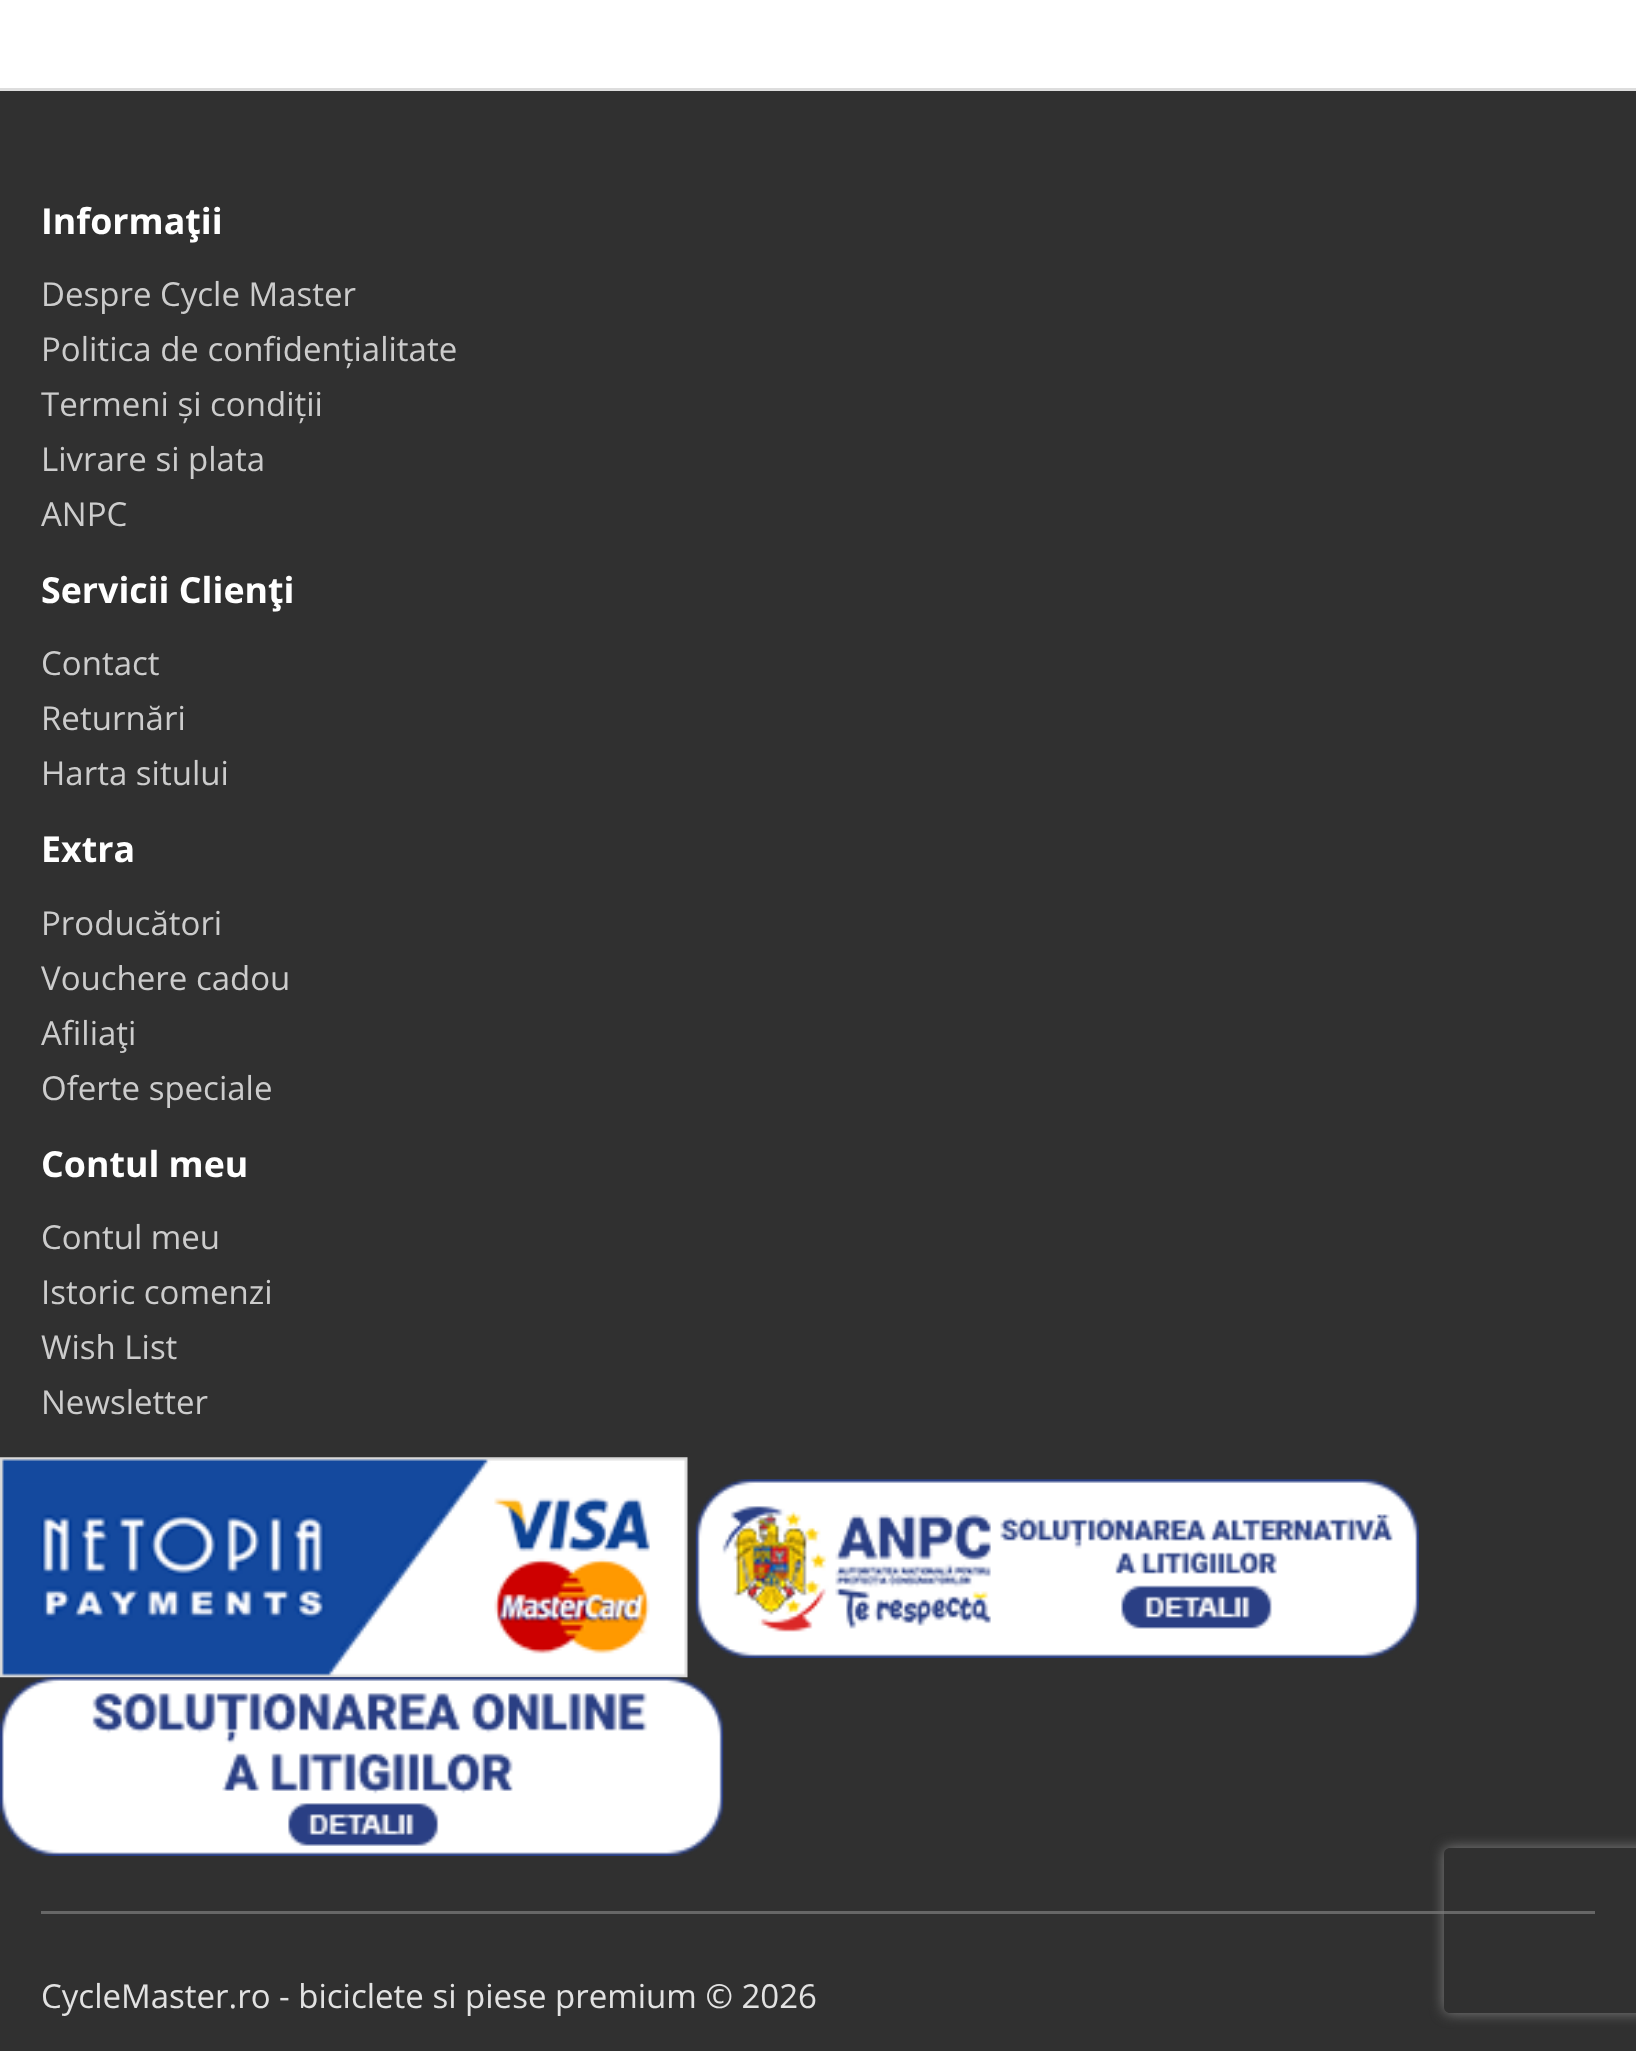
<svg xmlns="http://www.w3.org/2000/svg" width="1636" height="2051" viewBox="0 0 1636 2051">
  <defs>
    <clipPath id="clip1"><path d="M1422 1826H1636V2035H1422ZM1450 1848H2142C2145.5 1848 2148 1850.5 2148 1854V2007C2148 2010.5 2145.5 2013 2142 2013H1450C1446.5 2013 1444 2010.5 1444 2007V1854C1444 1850.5 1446.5 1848 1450 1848Z" clip-rule="evenodd"/></clipPath>
  </defs>
  <rect width="100%" height="100%" fill="rgb(255,255,255)"/>
  <rect x="0" y="91" width="1636" height="1960" fill="rgb(48,48,48)"/>
  <rect x="0" y="88" width="1636" height="3" fill="rgb(221,221,221)"/>
  <text x="41" y="234" font-family="Open Sans" font-size="35.75" font-weight="bold" fill="rgb(255,255,255)">Informaţii</text>
  <g font-family="Open Sans" font-size="33" fill="rgb(204,204,204)">
    <text>
      <tspan x="41" y="306">Despre Cycle Master</tspan>
      <tspan x="41" y="361">Politica de confidențialitate</tspan>
      <tspan x="41" y="416">Termeni și condiții</tspan>
      <tspan x="41" y="471">Livrare si plata</tspan>
      <tspan x="41" y="526">ANPC</tspan>
    </text>
  </g>
  <text x="41" y="603" font-family="Open Sans" font-size="35.75" font-weight="bold" fill="rgb(255,255,255)">Servicii Clienţi</text>
  <g font-family="Open Sans" font-size="33" fill="rgb(204,204,204)">
    <text>
      <tspan x="41" y="675">Contact</tspan>
      <tspan x="41" y="730">Returnări</tspan>
      <tspan x="41" y="785">Harta sitului</tspan>
    </text>
  </g>
  <text x="41" y="862" font-family="Open Sans" font-size="35.75" font-weight="bold" fill="rgb(255,255,255)">Extra</text>
  <g font-family="Open Sans" font-size="33" fill="rgb(204,204,204)">
    <text>
      <tspan x="41" y="935">Producători</tspan>
      <tspan x="41" y="990">Vouchere cadou</tspan>
      <tspan x="41" y="1045">Afiliaţi</tspan>
      <tspan x="41" y="1100">Oferte speciale</tspan>
    </text>
  </g>
  <text x="41" y="1177" font-family="Open Sans" font-size="35.75" font-weight="bold" fill="rgb(255,255,255)">Contul meu</text>
  <g font-family="Open Sans" font-size="33" fill="rgb(204,204,204)">
    <text>
      <tspan x="41" y="1249">Contul meu</tspan>
      <tspan x="41" y="1304">Istoric comenzi</tspan>
      <tspan x="41" y="1359">Wish List</tspan>
      <tspan x="41" y="1414">Newsletter</tspan>
    </text>
  </g>
  <image x="0" y="1457" width="688" height="221" href="pic1.png"/>
  <image x="695" y="1479" width="724" height="179" href="pic2.png"/>
  <image x="0" y="1677" width="724" height="179" href="pic3.png"/>
  <rect x="41" y="1911" width="1554" height="3" fill="rgb(102,102,102)"/>
  <text x="41" y="2008" font-family="Open Sans" font-size="33" fill="rgb(226,226,226)">CycleMaster.ro - biciclete si piese premium © 2026</text>
  <g clip-path="url(#clip1)">
    <rect x="1444" y="1848" width="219" height="165" rx="6" fill="rgb(128,128,128)" filter="blur(7px)"/>
  </g>
</svg>
